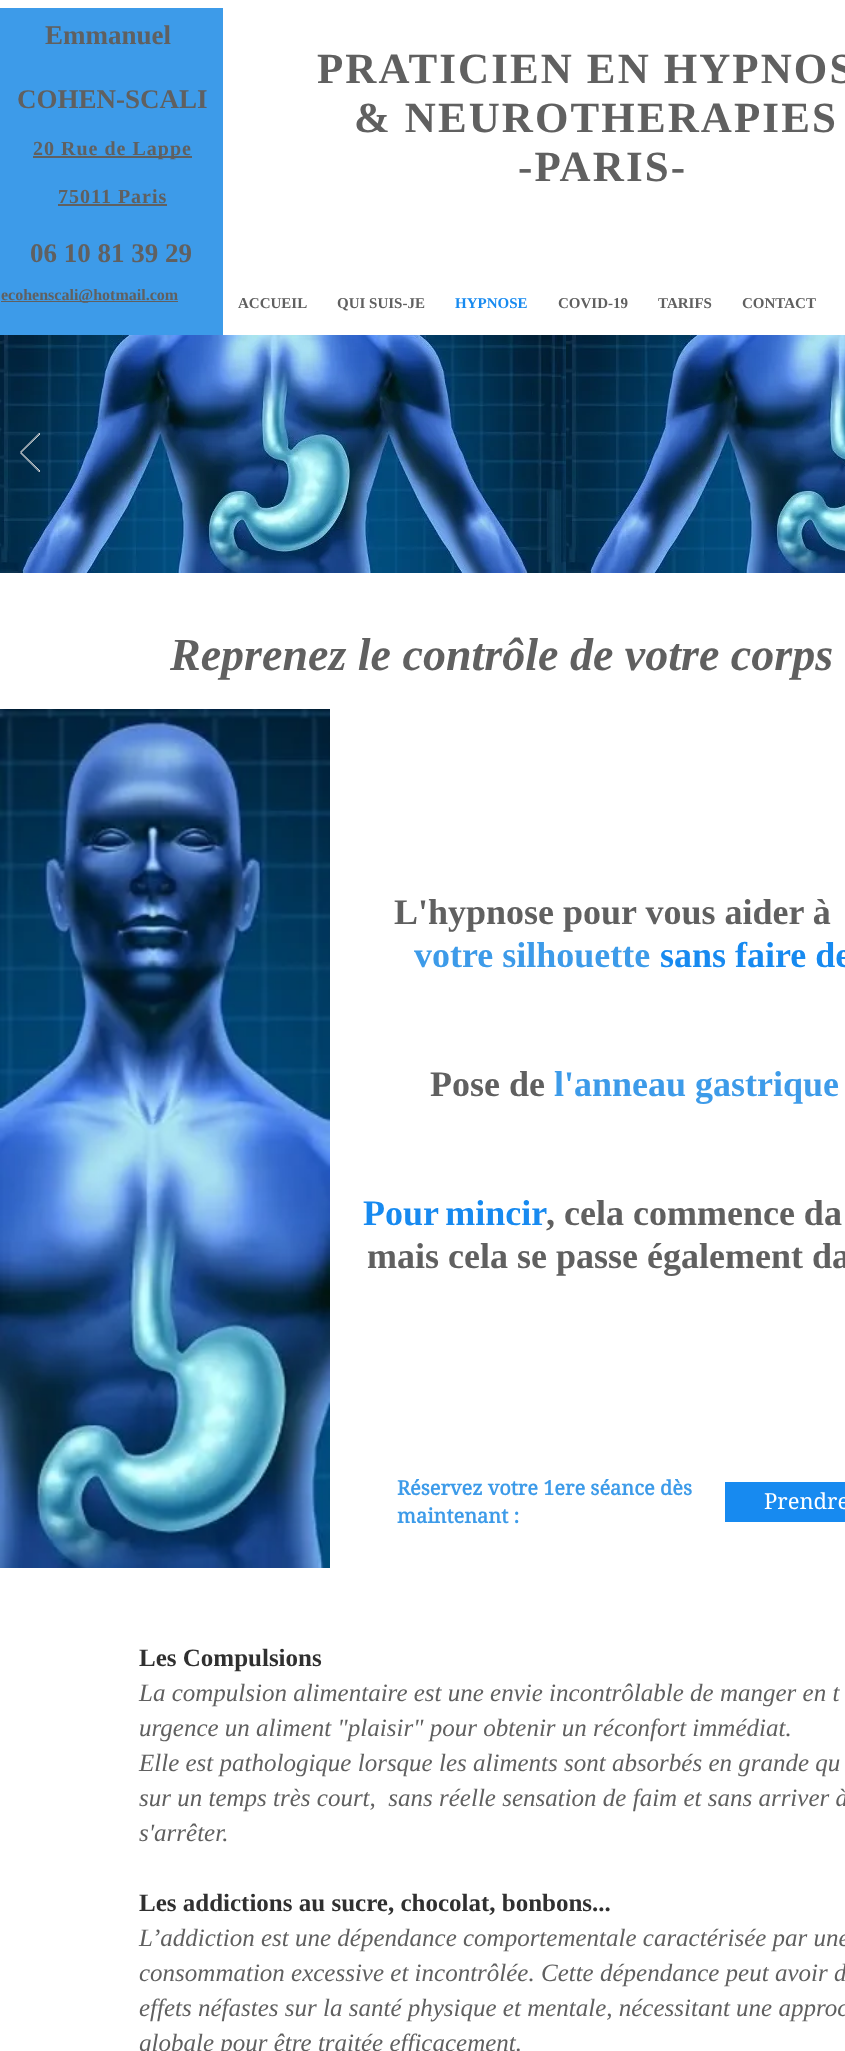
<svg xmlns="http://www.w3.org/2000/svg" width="845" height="2051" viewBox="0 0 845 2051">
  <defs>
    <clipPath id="clip1"><rect x="20" y="433" width="20" height="39"/></clipPath>
  </defs>
  <rect width="100%" height="100%" fill="rgb(255,255,255)"/>
  <rect x="0" y="8" width="223" height="327" fill="rgb(61,155,233)"/>
  <g font-family="Liberation Serif" font-size="27" font-weight="bold" fill="rgb(96,96,96)">
    <text x="45" y="44">Emmanuel</text>
    <text x="17" y="108">COHEN-SCALI</text>
  </g>
  <rect x="33" y="156" width="159" height="2" fill="rgb(96,96,96)"/>
  <g font-family="Liberation Serif" font-size="20" font-weight="bold" letter-spacing="1" fill="rgb(96,96,96)">
    <text x="33" y="155">20 Rue de Lappe</text>
    <text x="58" y="203">75011 Paris</text>
  </g>
  <rect x="58" y="204" width="109" height="2" fill="rgb(96,96,96)"/>
  <text x="30" y="262" font-family="Liberation Serif" font-size="27" font-weight="bold" fill="rgb(96,96,96)">06 10 81 39 29</text>
  <rect x="1" y="301" width="177" height="1" fill="rgb(96,96,96)"/>
  <text x="1" y="300" font-family="Liberation Serif" font-size="16" font-weight="bold" fill="rgb(96,96,96)">ecohenscali@hotmail.com</text>
  <g font-family="Liberation Serif" font-size="43" font-weight="bold" letter-spacing="2.1" fill="rgb(96,96,96)">
    <text x="317" y="83">PRATICIEN EN HYPNOS</text>
    <text x="354" y="132">&amp; NEUROTHERAPIES</text>
    <text x="518" y="181">-PARIS-</text>
  </g>
  <g font-family="Liberation Serif" font-size="15" font-weight="bold" fill="rgb(96,96,96)">
    <text x="238" y="308">ACCUEIL</text>
    <text x="337" y="308">QUI SUIS-JE</text>
  </g>
  <text x="455" y="308" font-family="Liberation Serif" font-size="15" font-weight="bold" fill="rgb(23,138,240)">HYPNOSE</text>
  <g font-family="Liberation Serif" font-size="15" font-weight="bold" fill="rgb(96,96,96)">
    <text x="558" y="308">COVID-19</text>
    <text x="658" y="308">TARIFS</text>
    <text x="742" y="308">CONTACT</text>
  </g>
  <image x="0" y="335" width="845" height="238" href="pic1.png"/>
  <g clip-path="url(#clip1)">
    <path d="M39.5 472L20 452.5L39.5 433L40 434L21 452.5L40 471Z" fill="none" stroke="rgb(219,219,219)"/>
  </g>
  <text x="170" y="670" font-family="Liberation Serif" font-size="46" font-weight="bold" font-style="italic" fill="rgb(96,96,96)">Reprenez le contrôle de votre corps</text>
  <image x="0" y="709" width="330" height="859" href="pic2.png"/>
  <text x="394" y="924" font-family="Liberation Serif" font-size="36" font-weight="bold" fill="rgb(96,96,96)">L'hypnose pour vous aider à</text>
  <text x="414" y="967" font-family="Liberation Serif" font-size="36" font-weight="bold" fill="rgb(61,155,233)">votre silhouette</text>
  <text x="660" y="967" font-family="Liberation Serif" font-size="36" font-weight="bold" fill="rgb(23,138,240)">sans faire de</text>
  <text x="430" y="1096" font-family="Liberation Serif" font-size="36" font-weight="bold" fill="rgb(96,96,96)">Pose de</text>
  <text x="554" y="1096" font-family="Liberation Serif" font-size="36" font-weight="bold" fill="rgb(61,155,233)">l'anneau gastrique</text>
  <text x="363" y="1225" word-spacing="-2" font-family="Liberation Serif" font-size="36" font-weight="bold" fill="rgb(23,138,240)">Pour mincir</text>
  <g font-family="Liberation Serif" font-size="36" font-weight="bold" fill="rgb(96,96,96)">
    <text x="546" y="1225">, cela commence da</text>
    <text x="367" y="1268">mais cela se passe également da</text>
  </g>
  <g font-family="'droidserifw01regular'" font-size="20" font-weight="bold" fill="rgb(61,155,233)">
    <text>
      <tspan x="397" y="1495">Réservez votre 1ere séance dès</tspan>
      <tspan x="397" y="1523">maintenant :</tspan>
    </text>
  </g>
  <rect x="725" y="1482" width="120" height="40" fill="rgb(23,138,240)"/>
  <text x="764" y="1509" font-family="'droidserifw01regular'" font-size="22" fill="rgb(255,255,255)">Prendre</text>
  <text x="139" y="1666" font-family="Liberation Serif" font-size="25" font-weight="bold" fill="rgb(48,48,48)">Les Compulsions</text>
  <g font-family="Liberation Serif" font-size="25" font-style="italic" fill="rgb(96,96,96)">
    <text xml:space="preserve"><tspan x="139" y="1701">La compulsion alimentaire est une envie incontrôlable de manger en t</tspan><tspan x="139" y="1736">urgence un aliment "plaisir" pour obtenir un réconfort immédiat.</tspan><tspan x="139" y="1771">Elle est pathologique lorsque les aliments sont absorbés en grande qu</tspan><tspan x="139" y="1806">sur un temps très court,  sans réelle sensation de faim et sans arriver à</tspan><tspan x="139" y="1841">s'arrêter.</tspan></text>
  </g>
  <text x="139" y="1911" font-family="Liberation Serif" font-size="25" font-weight="bold" fill="rgb(48,48,48)">Les addictions au sucre, chocolat, bonbons...</text>
  <g font-family="Liberation Serif" font-size="25" font-style="italic" fill="rgb(96,96,96)">
    <text>
      <tspan x="139" y="1946">L’addiction est une dépendance comportementale caractérisée par une</tspan>
      <tspan x="139" y="1981">consommation excessive et incontrôlée. Cette dépendance peut avoir d</tspan>
      <tspan x="139" y="2016">effets néfastes sur la santé physique et mentale, nécessitant une approc</tspan>
      <tspan x="139" y="2051">globale pour être traitée efficacement.</tspan>
    </text>
  </g>
</svg>
